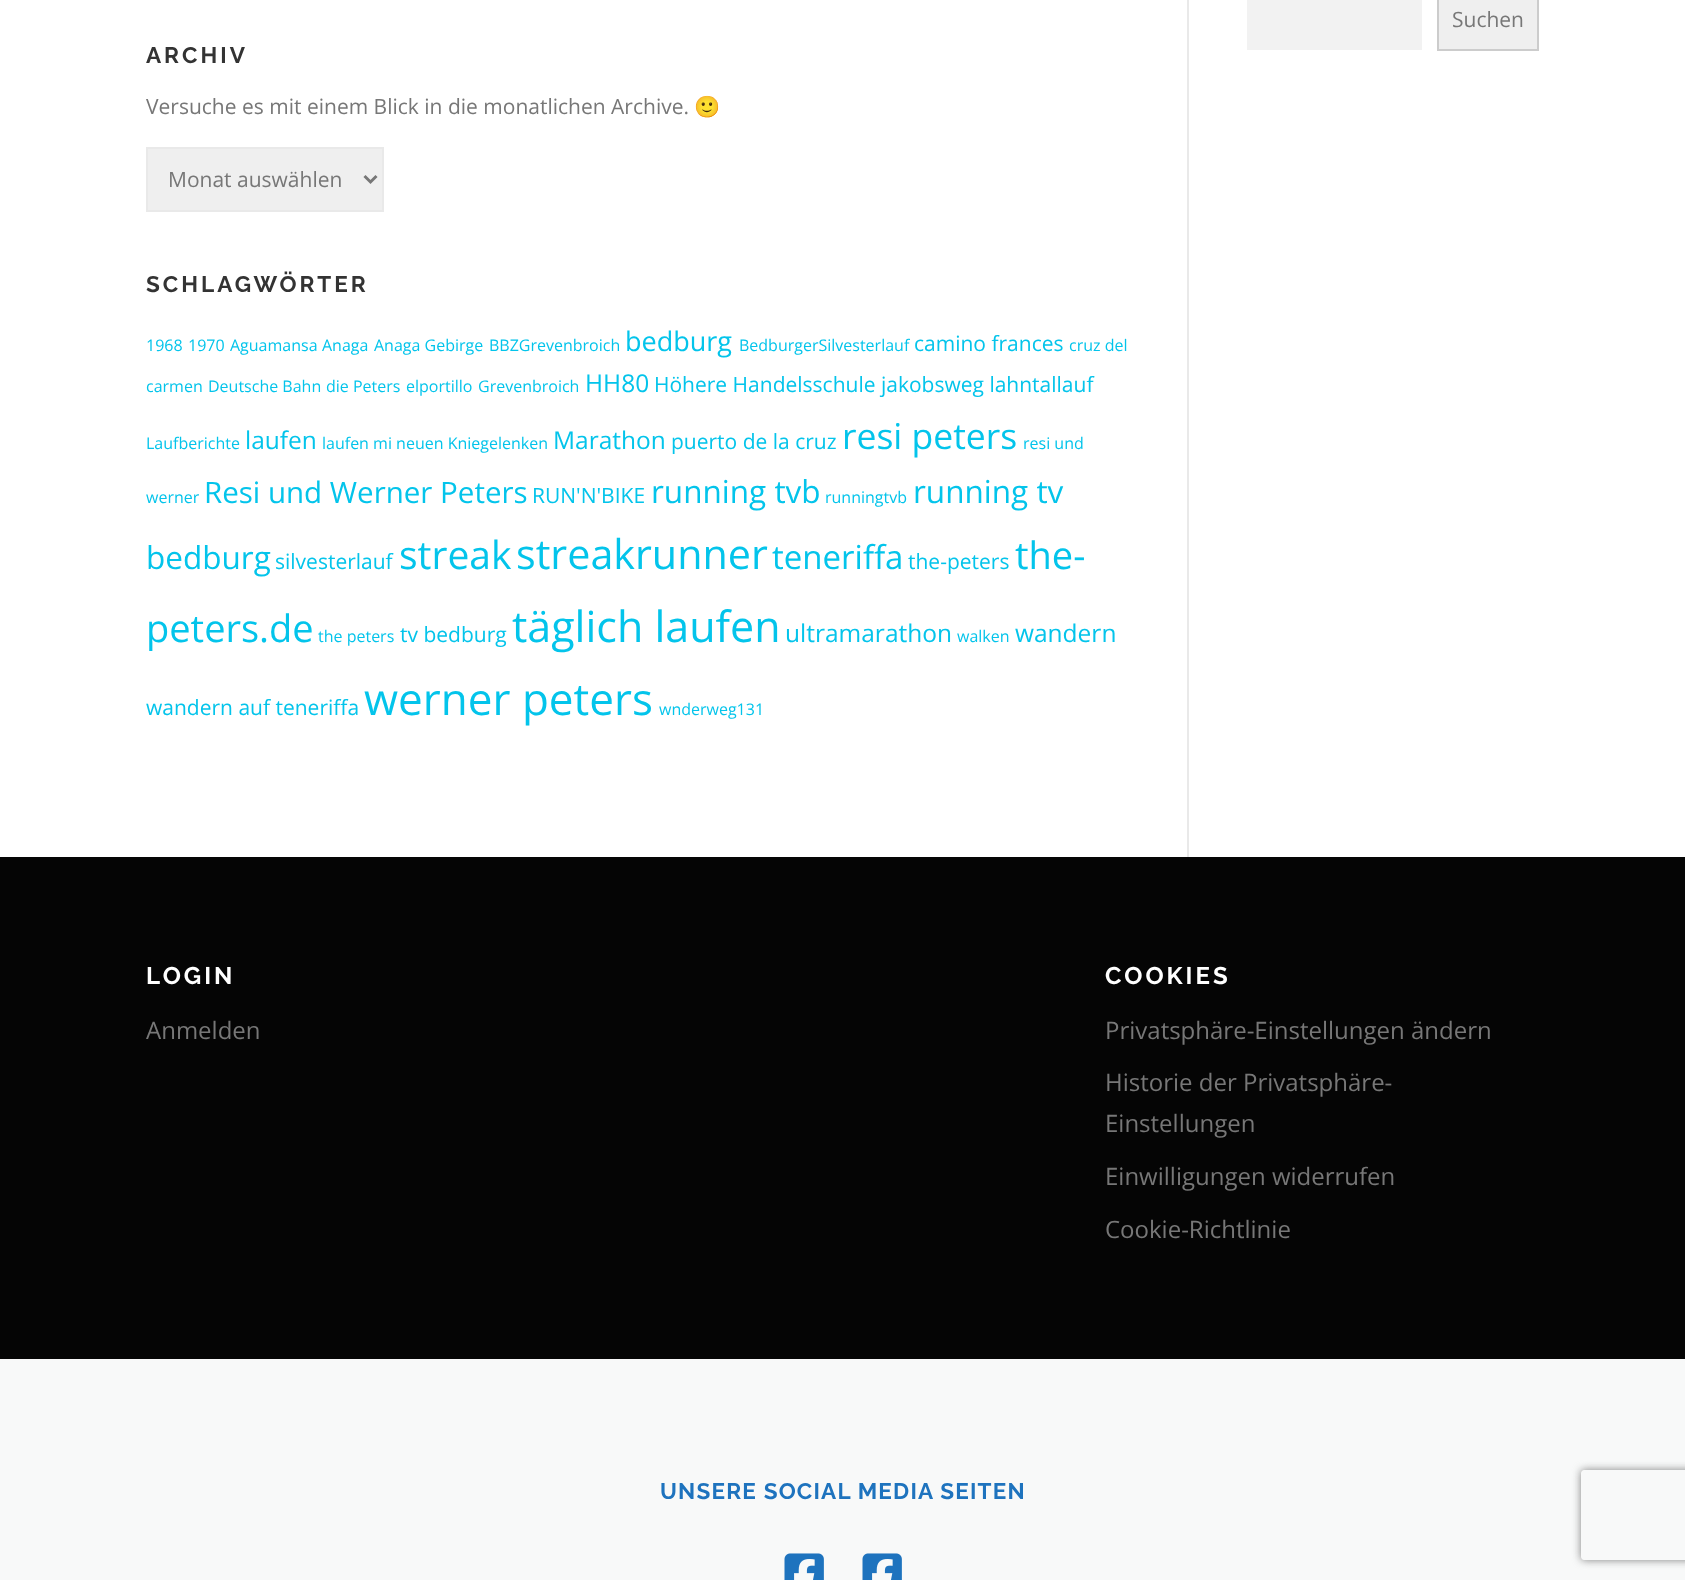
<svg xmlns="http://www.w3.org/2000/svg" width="1685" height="1580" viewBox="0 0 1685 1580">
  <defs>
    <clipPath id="clip1"><path d="M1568 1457H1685V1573H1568ZM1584 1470H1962C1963.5 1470 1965 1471.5 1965 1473V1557C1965 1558.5 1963.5 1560 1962 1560H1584C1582.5 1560 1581 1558.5 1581 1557V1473C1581 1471.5 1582.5 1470 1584 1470Z" clip-rule="evenodd"/></clipPath>
  </defs>
  <rect width="100%" height="100%" fill="rgb(255,255,255)"/>
  <rect x="1247" y="0" width="175" height="50" fill="rgb(242,242,242)"/>
  <rect x="1438" y="-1" width="100" height="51" fill="rgb(239,239,239)" stroke="rgb(204,204,204)" stroke-width="2"/>
  <text x="1452" y="27" font-family="Open Sans" font-size="21" fill="rgb(119,119,119)">Suchen</text>
  <rect x="1187" y="0" width="2" height="857" fill="rgb(233,233,233)"/>
  <text x="146" y="63" font-family="Raleway" font-size="22.5" font-weight="bold" letter-spacing="3" fill="rgb(51,51,51)">ARCHIV</text>
  <text x="146" y="114" font-family="Open Sans" font-size="21" fill="rgb(119,119,119)">Versuche es mit einem Blick in die monatlichen Archive.</text>
  <text x="694" y="114" font-family="Noto Color Emoji" font-size="21" fill="rgb(119,119,119)">🙂</text>
  <rect x="147" y="148" width="236" height="63" fill="rgb(239,239,239)" stroke="rgb(233,233,233)" stroke-width="2"/>
  <path d="M364.5 176L370.5 182L376.5 176" fill="none" stroke="rgb(119,119,119)" stroke-width="3"/>
  <text x="168" y="187" font-family="Open Sans" font-size="21" fill="rgb(119,119,119)">Monat auswählen</text>
  <text x="146" y="292" font-family="Raleway" font-size="22.5" font-weight="bold" letter-spacing="3" fill="rgb(51,51,51)">SCHLAGWÖRTER</text>
  <g font-family="Open Sans" font-size="16" fill="rgb(3,196,235)">
    <text x="146" y="351">1968</text>
    <text x="188" y="351">1970</text>
    <text x="230" y="351">Aguamansa</text>
    <text x="322" y="351">Anaga</text>
    <text x="374" y="351">Anaga Gebirge</text>
    <text x="489" y="351">BBZGrevenbroich</text>
  </g>
  <text x="625" y="351" font-family="Open Sans" font-size="27" fill="rgb(3,196,235)">bedburg</text>
  <text x="739" y="351" font-family="Open Sans" font-size="16" fill="rgb(3,196,235)">BedburgerSilvesterlauf</text>
  <text x="914" y="351" font-family="Open Sans" font-size="21" fill="rgb(3,196,235)">camino frances</text>
  <g font-family="Open Sans" font-size="16" fill="rgb(3,196,235)">
    <text x="1069" y="351">cruz del</text>
    <text x="146" y="392">carmen</text>
    <text x="208" y="392">Deutsche Bahn</text>
    <text x="326" y="392">die Peters</text>
    <text x="406" y="392">elportillo</text>
    <text x="478" y="392">Grevenbroich</text>
  </g>
  <text x="585" y="392" font-family="Open Sans" font-size="24.5" fill="rgb(3,196,235)">HH80</text>
  <text x="654" y="392" font-family="Open Sans" font-size="21" fill="rgb(3,196,235)">Höhere Handelsschule jakobsweg lahntallauf</text>
  <text x="146" y="449" font-family="Open Sans" font-size="16" fill="rgb(3,196,235)">Laufberichte</text>
  <text x="245" y="449" font-family="Open Sans" font-size="24.5" fill="rgb(3,196,235)">laufen</text>
  <text x="322" y="449" font-family="Open Sans" font-size="16" fill="rgb(3,196,235)">laufen mi neuen Kniegelenken</text>
  <text x="553" y="449" font-family="Open Sans" font-size="24.5" fill="rgb(3,196,235)">Marathon</text>
  <text x="671" y="449" font-family="Open Sans" font-size="21" fill="rgb(3,196,235)">puerto de la cruz</text>
  <text x="842" y="449" font-family="Open Sans" font-size="35.5" fill="rgb(3,196,235)">resi peters</text>
  <g font-family="Open Sans" font-size="16" fill="rgb(3,196,235)">
    <text x="1023" y="449">resi und</text>
    <text x="146" y="503">werner</text>
  </g>
  <text x="204" y="503" font-family="Open Sans" font-size="29.5" fill="rgb(3,196,235)">Resi und Werner Peters</text>
  <text x="532" y="503" font-family="Open Sans" font-size="21" fill="rgb(3,196,235)">RUN'N'BIKE</text>
  <text x="651" y="503" font-family="Open Sans" font-size="31.5" fill="rgb(3,196,235)">running tvb</text>
  <text x="825" y="503" font-family="Open Sans" font-size="16" fill="rgb(3,196,235)">runningtvb</text>
  <g font-family="Open Sans" font-size="31.5" fill="rgb(3,196,235)">
    <text x="913" y="503">running tv</text>
    <text x="146" y="569">bedburg</text>
  </g>
  <text x="275" y="569" font-family="Open Sans" font-size="21" fill="rgb(3,196,235)">silvesterlauf</text>
  <text x="399" y="569" font-family="Open Sans" font-size="39" fill="rgb(3,196,235)">streak</text>
  <text x="516" y="569" font-family="Open Sans" font-size="41.25" fill="rgb(3,196,235)">streakrunner</text>
  <text x="772" y="569" font-family="Open Sans" font-size="33" fill="rgb(3,196,235)">teneriffa</text>
  <text x="908" y="569" font-family="Open Sans" font-size="21" fill="rgb(3,196,235)">the-peters</text>
  <g font-family="Open Sans" font-size="38" fill="rgb(3,196,235)">
    <text x="1015" y="569">the-</text>
    <text x="146" y="642">peters.de</text>
  </g>
  <text x="318" y="642" font-family="Open Sans" font-size="16" fill="rgb(3,196,235)">the peters</text>
  <text x="400" y="642" font-family="Open Sans" font-size="21" fill="rgb(3,196,235)">tv bedburg</text>
  <text x="512" y="642" font-family="Open Sans" font-size="43" fill="rgb(3,196,235)">täglich laufen</text>
  <text x="785" y="642" font-family="Open Sans" font-size="24.5" fill="rgb(3,196,235)">ultramarathon</text>
  <text x="957" y="642" font-family="Open Sans" font-size="16" fill="rgb(3,196,235)">walken</text>
  <text x="1015" y="642" font-family="Open Sans" font-size="24.5" fill="rgb(3,196,235)">wandern</text>
  <text x="146" y="715" font-family="Open Sans" font-size="21" fill="rgb(3,196,235)">wandern auf teneriffa</text>
  <text x="364" y="715" font-family="Open Sans" font-size="44" fill="rgb(3,196,235)">werner peters</text>
  <text x="659" y="715" font-family="Open Sans" font-size="16" fill="rgb(3,196,235)">wnderweg131</text>
  <rect x="0" y="1359" width="1685" height="221" fill="rgb(248,249,249)"/>
  <rect x="0" y="857" width="1685" height="502" fill="rgb(5,5,5)"/>
  <text x="146" y="984" font-family="Raleway" font-size="24" font-weight="bold" letter-spacing="3" fill="rgb(255,255,255)">LOGIN</text>
  <text x="146" y="1039" font-family="Open Sans" font-size="24" fill="rgb(119,119,119)">Anmelden</text>
  <text x="1105" y="984" font-family="Raleway" font-size="24" font-weight="bold" letter-spacing="3" fill="rgb(255,255,255)">COOKIES</text>
  <g font-family="Open Sans" font-size="24" fill="rgb(119,119,119)">
    <text x="1105" y="1039">Privatsphäre-Einstellungen ändern</text>
    <text>
      <tspan x="1105" y="1091">Historie der Privatsphäre-</tspan>
      <tspan x="1105" y="1132">Einstellungen</tspan>
    </text>
    <text x="1105" y="1185">Einwilligungen widerrufen</text>
    <text x="1105" y="1238">Cookie-Richtlinie</text>
  </g>
  <text x="660" y="1499" font-family="Raleway" font-size="22.5" font-weight="bold" letter-spacing="1.2" fill="rgb(30,115,190)">UNSERE SOCIAL MEDIA SEITEN</text>
  <image x="784" y="1553" width="40" height="27" href="pic1.png"/>
  <image x="862" y="1553" width="40" height="27" href="pic1.png"/>
  <g clip-path="url(#clip1)">
    <rect x="1581" y="1470" width="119" height="90" rx="3" fill="rgb(128,128,128)" filter="blur(4px)"/>
  </g>
</svg>
